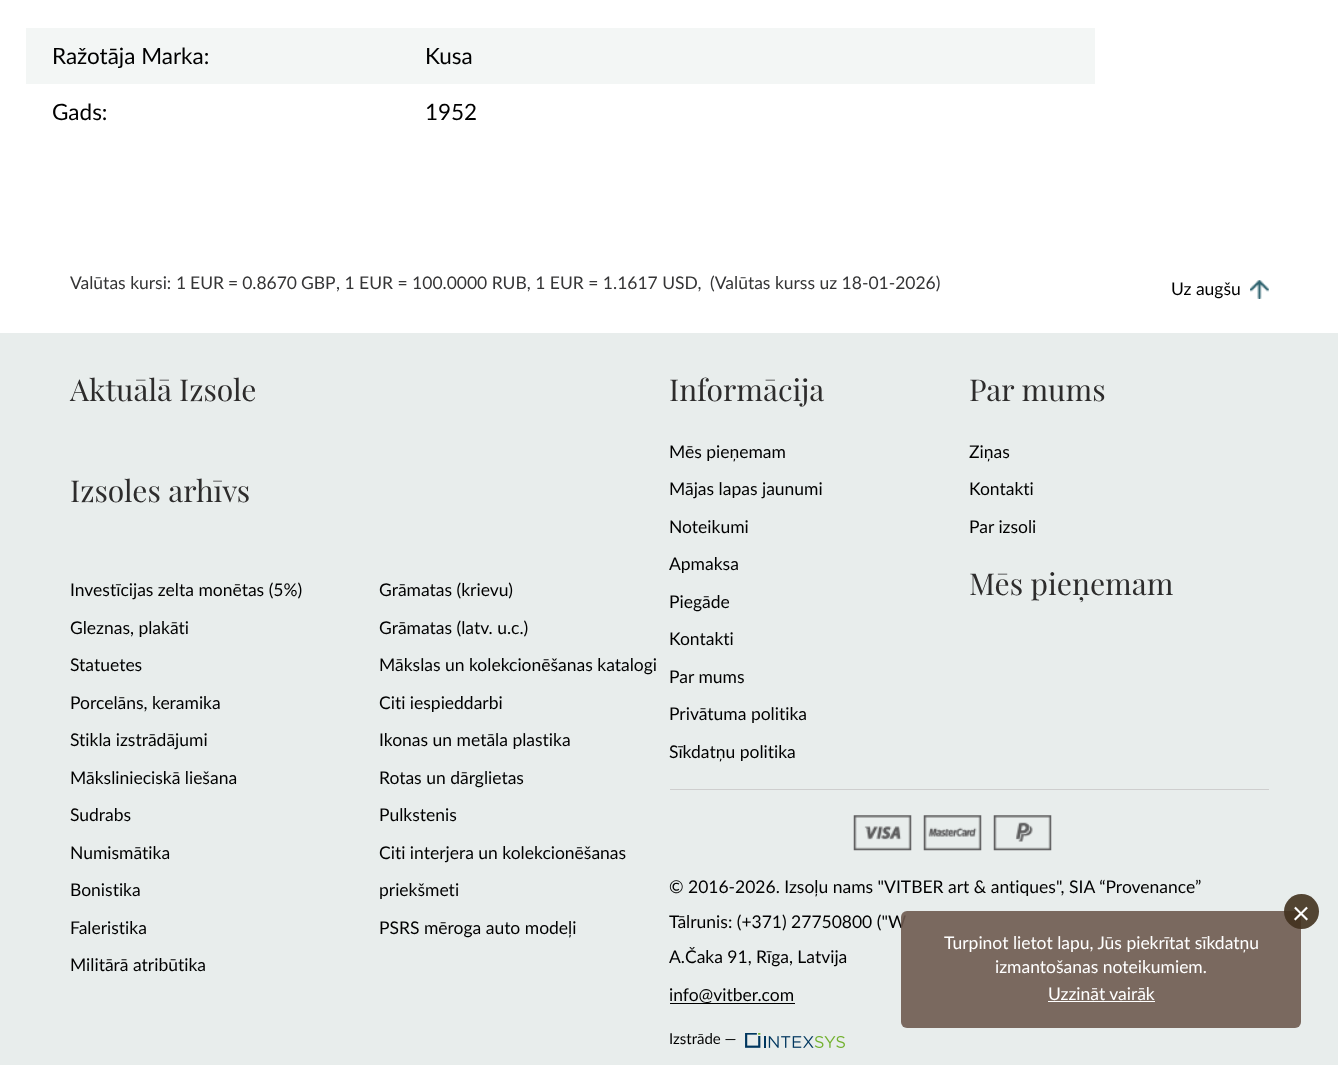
<svg xmlns="http://www.w3.org/2000/svg" width="1338" height="1065" viewBox="0 0 1338 1065">
  <rect width="100%" height="100%" fill="rgb(255,255,255)"/>
  <rect x="26" y="28" width="1069" height="56" fill="rgb(243,246,245)"/>
  <g font-family="Lato" font-size="22.5" fill="rgb(0,0,0)">
    <text x="52" y="64">Ražotāja Marka:</text>
    <text x="425" y="64">Kusa</text>
    <text x="52" y="120">Gads:</text>
    <text x="425" y="120">1952</text>
  </g>
  <g font-family="Lato" font-size="17.5" fill="rgb(53,53,54)">
    <text x="70" y="289">Valūtas kursi:</text>
    <text x="176" y="289" word-spacing="-0.5">1 EUR = 0.8670 GBP</text>
    <text x="336" y="289">, 1 EUR = 100.0000 RUB, 1 EUR = 1.1617 USD,</text>
    <text x="710" y="289">(Valūtas kurss uz 18-01-2026)</text>
  </g>
  <text x="1171" y="295" font-family="Lato" font-size="17.5" fill="rgb(0,0,0)">Uz augšu</text>
  <image x="1250" y="280" width="19" height="19" href="pic1.png"/>
  <rect x="0" y="333" width="1338" height="732" fill="rgb(232,237,236)"/>
  <g font-family="Playfair Display" font-size="30" fill="rgb(45,44,44)">
    <text x="70" y="401">Aktuālā Izsole</text>
    <text x="70" y="502">Izsoles arhīvs</text>
  </g>
  <g font-family="Lato" font-size="17.5" fill="rgb(0,0,0)">
    <text x="70" y="596">Investīcijas zelta monētas (5%)</text>
    <text x="379" y="596">Grāmatas (krievu)</text>
    <text x="70" y="634">Gleznas, plakāti</text>
    <text x="379" y="634">Grāmatas (latv. u.c.)</text>
    <text x="70" y="671">Statuetes</text>
    <text x="379" y="671">Mākslas un kolekcionēšanas katalogi</text>
    <text x="70" y="709">Porcelāns, keramika</text>
    <text x="379" y="709">Citi iespieddarbi</text>
    <text x="70" y="746">Stikla izstrādājumi</text>
    <text x="379" y="746">Ikonas un metāla plastika</text>
    <text x="70" y="784">Mākslinieciskā liešana</text>
    <text x="379" y="784">Rotas un dārglietas</text>
    <text x="70" y="821">Sudrabs</text>
    <text x="379" y="821">Pulkstenis</text>
    <text x="70" y="859">Numismātika</text>
    <text x="379" y="859">Citi interjera un kolekcionēšanas</text>
    <text x="379" y="896">priekšmeti</text>
    <text x="70" y="896">Bonistika</text>
    <text x="70" y="934">Faleristika</text>
    <text x="379" y="934">PSRS mēroga auto modeļi</text>
    <text x="70" y="971">Militārā atribūtika</text>
  </g>
  <text x="669" y="401" font-family="Playfair Display" font-size="30" fill="rgb(45,44,44)">Informācija</text>
  <g font-family="Lato" font-size="17.5" fill="rgb(0,0,0)">
    <text x="669" y="458">Mēs pieņemam</text>
    <text x="669" y="495">Mājas lapas jaunumi</text>
    <text x="669" y="533">Noteikumi</text>
    <text x="669" y="570">Apmaksa</text>
    <text x="669" y="608">Piegāde</text>
    <text x="669" y="645">Kontakti</text>
    <text x="669" y="683">Par mums</text>
    <text x="669" y="720">Privātuma politika</text>
    <text x="669" y="758">Sīkdatņu politika</text>
  </g>
  <text x="969" y="401" font-family="Playfair Display" font-size="30" fill="rgb(45,44,44)">Par mums</text>
  <g font-family="Lato" font-size="17.5" fill="rgb(0,0,0)">
    <text x="969" y="458">Ziņas</text>
    <text x="969" y="495">Kontakti</text>
    <text x="969" y="533">Par izsoli</text>
  </g>
  <text x="969" y="595" font-family="Playfair Display" font-size="30" fill="rgb(45,44,44)">Mēs pieņemam</text>
  <rect x="670" y="789" width="599" height="1" fill="rgb(206,206,206)"/>
  <image x="853" y="815" width="59" height="36" href="pic2.png"/>
  <image x="923" y="815" width="59" height="36" href="pic3.png"/>
  <image x="993" y="815" width="59" height="36" href="pic4.png"/>
  <g font-family="Lato" font-size="17.5" fill="rgb(0,0,0)">
    <text x="669" y="893">© 2016-2026. Izsoļu nams "VITBER art &amp; antiques", SIA “Provenance”</text>
    <text x="669" y="928">Tālrunis: (+371) 27750800 ("W</text>
    <text x="669" y="963">А.Čaka 91, Rīga, Latvija</text>
  </g>
  <rect x="670" y="1003" width="125" height="1" fill="rgb(0,0,0)"/>
  <text x="669" y="1001" font-family="Lato" font-size="17.5" fill="rgb(0,0,0)">info@vitber.com</text>
  <text x="669" y="1044" font-family="Lato" font-size="15" fill="rgb(0,0,0)">Izstrāde —</text>
  <image x="745" y="1033" width="100" height="15" href="pic5.png"/>
  <rect x="901" y="911" width="400" height="117" rx="6" fill="rgba(110,90,80,0.9)"/>
  <circle cx="1301.5" cy="911.5" r="17.5" fill="rgba(65,49,30,0.9)"/>
  <text x="1292" y="924" font-family="Lato" font-size="31" fill="rgb(255,255,255)">×</text>
  <g font-family="Lato" font-size="17.5" fill="rgb(255,255,255)">
    <text x="944" y="949">Turpinot lietot lapu, Jūs piekrītat sīkdatņu</text>
    <text x="995" y="973">izmantošanas noteikumiem.</text>
    <text x="1048" y="1000">Uzzināt vairāk</text>
  </g>
  <rect x="1048" y="1001" width="107" height="1" fill="rgb(255,255,255)"/>
</svg>
